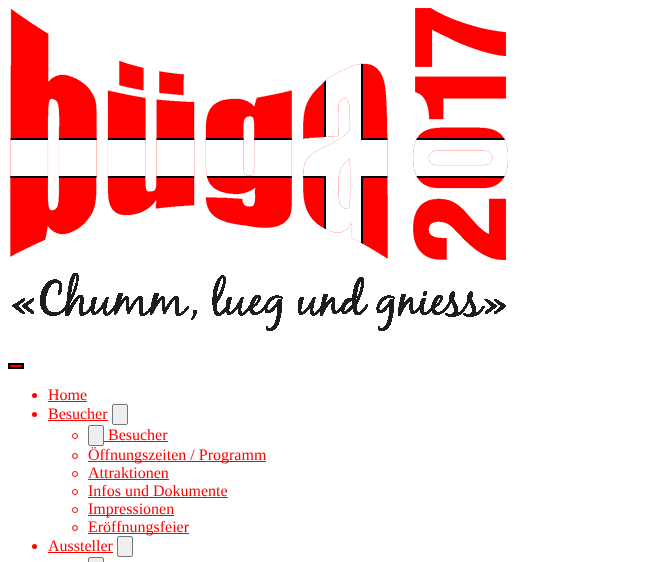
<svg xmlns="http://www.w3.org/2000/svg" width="652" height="562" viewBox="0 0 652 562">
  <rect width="100%" height="100%" fill="rgb(255,255,255)"/>
  <image x="10" y="8" width="498" height="323" href="pic1.png"/>
  <rect x="9" y="364" width="14" height="4" fill="rgb(254,0,0)" stroke="rgb(0,0,0)" stroke-width="2"/>
  <circle cx="34.5" cy="395.5" r="2.5" fill="rgb(254,0,0)"/>
  <text x="48" y="400" font-family="Liberation Serif" font-size="16" fill="rgb(254,0,0)">Home</text>
  <rect x="48" y="401" width="39" height="1" fill="rgb(254,0,0)"/>
  <circle cx="34.5" cy="414.5" r="2.5" fill="rgb(254,0,0)"/>
  <text x="48" y="419" font-family="Liberation Serif" font-size="16" fill="rgb(254,0,0)">Besucher</text>
  <rect x="48" y="420" width="60" height="1" fill="rgb(254,0,0)"/>
  <rect x="112.5" y="404.5" width="15" height="20" rx="1.5" fill="rgb(239,239,239)" stroke="rgb(118,118,118)"/>
  <circle cx="75" cy="436" r="2.5" fill="none" stroke="rgb(254,0,0)"/>
  <rect x="88.5" y="425.5" width="15" height="20" rx="1.5" fill="rgb(239,239,239)" stroke="rgb(118,118,118)"/>
  <text x="108" y="440" font-family="Liberation Serif" font-size="16" fill="rgb(254,0,0)">Besucher</text>
  <rect x="104" y="441" width="64" height="1" fill="rgb(254,0,0)"/>
  <circle cx="75" cy="456" r="2.5" fill="none" stroke="rgb(254,0,0)"/>
  <rect x="88" y="461" width="178" height="1" fill="rgb(254,0,0)"/>
  <text x="88" y="460" font-family="Liberation Serif" font-size="16" fill="rgb(254,0,0)">Öffnungszeiten / Programm</text>
  <circle cx="75" cy="474" r="2.5" fill="none" stroke="rgb(254,0,0)"/>
  <text x="88" y="478" font-family="Liberation Serif" font-size="16" fill="rgb(254,0,0)">Attraktionen</text>
  <rect x="88" y="479" width="81" height="1" fill="rgb(254,0,0)"/>
  <circle cx="75" cy="492" r="2.5" fill="none" stroke="rgb(254,0,0)"/>
  <text x="88" y="496" font-family="Liberation Serif" font-size="16" fill="rgb(254,0,0)">Infos und Dokumente</text>
  <rect x="88" y="497" width="140" height="1" fill="rgb(254,0,0)"/>
  <circle cx="75" cy="510" r="2.5" fill="none" stroke="rgb(254,0,0)"/>
  <rect x="88" y="515" width="86" height="1" fill="rgb(254,0,0)"/>
  <text x="88" y="514" font-family="Liberation Serif" font-size="16" fill="rgb(254,0,0)">Impressionen</text>
  <circle cx="75" cy="528" r="2.5" fill="none" stroke="rgb(254,0,0)"/>
  <rect x="88" y="533" width="101" height="1" fill="rgb(254,0,0)"/>
  <text x="88" y="532" font-family="Liberation Serif" font-size="16" fill="rgb(254,0,0)">Eröffnungsfeier</text>
  <circle cx="34.5" cy="546.5" r="2.5" fill="rgb(254,0,0)"/>
  <text x="48" y="551" font-family="Liberation Serif" font-size="16" fill="rgb(254,0,0)">Aussteller</text>
  <rect x="48" y="552" width="65" height="1" fill="rgb(254,0,0)"/>
  <rect x="117.5" y="536.5" width="15" height="20" rx="1.5" fill="rgb(239,239,239)" stroke="rgb(118,118,118)"/>
  <rect x="88.5" y="557.5" width="15" height="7" rx="1.5" fill="rgb(239,239,239)" stroke="rgb(118,118,118)"/>
</svg>
